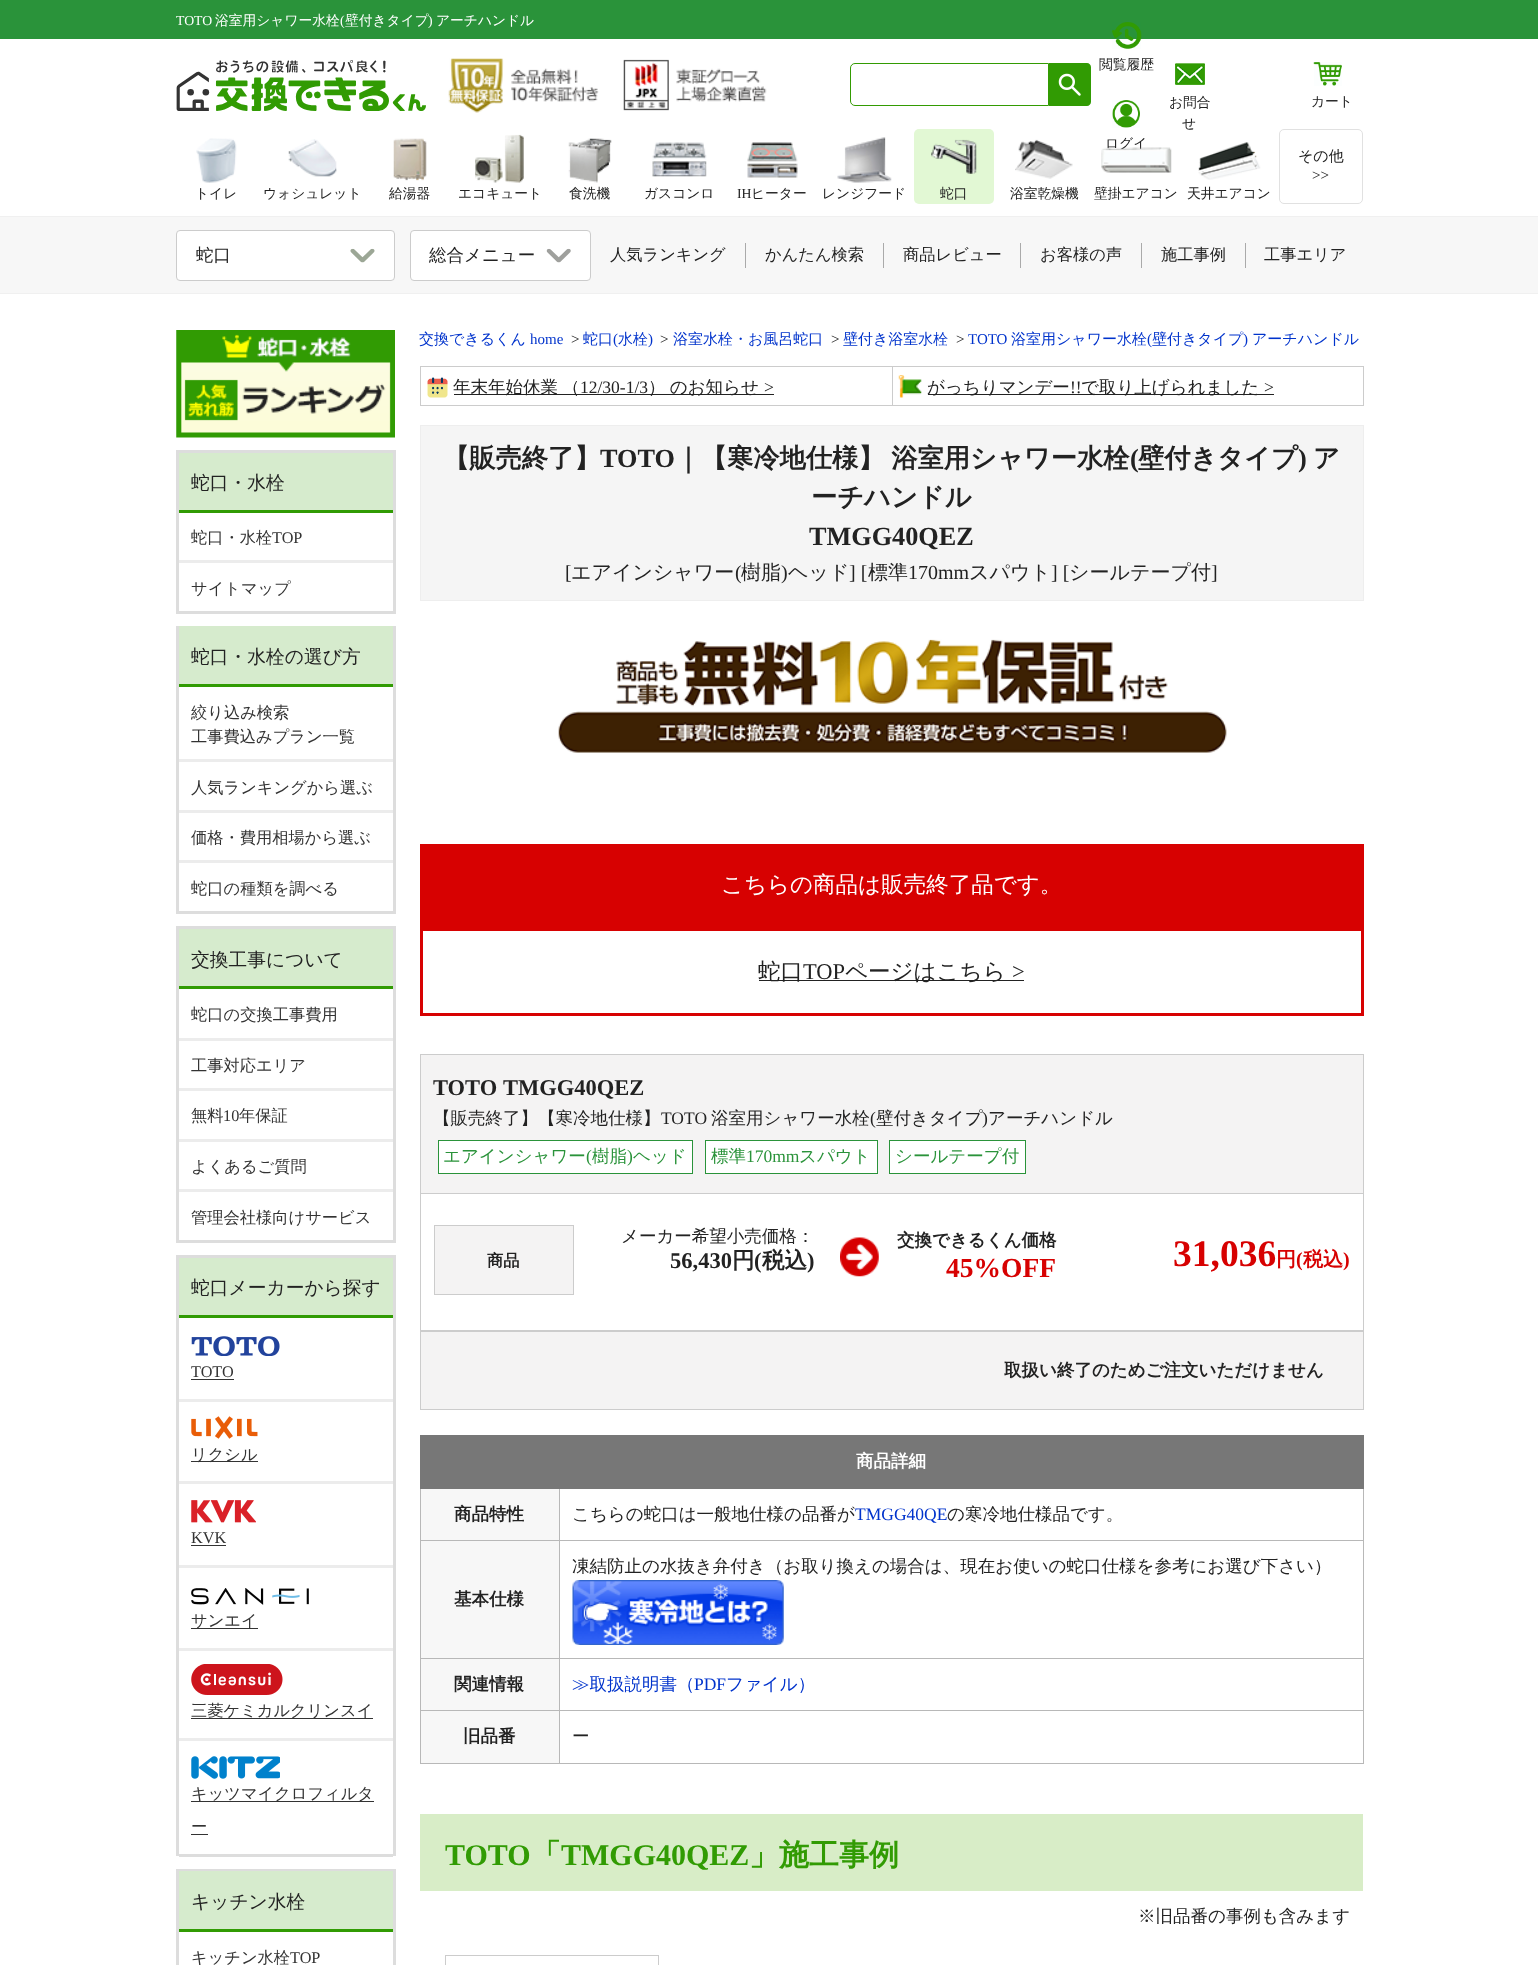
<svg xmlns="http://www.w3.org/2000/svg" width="1538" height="1965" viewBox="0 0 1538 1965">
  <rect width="100%" height="100%" fill="rgb(255,255,255)"/>
  <rect x="0" y="0" width="1538" height="39" fill="rgb(42,147,58)"/>
  <text x="176" y="25" font-family="Liberation Serif" font-size="13.75" fill="rgb(255,255,255)">TOTO</text>
  <text x="215" y="25" font-family="WenQuanYi Zen Hei" font-size="13.75" font-weight="500" fill="rgb(255,255,255)">浴室用シャワー水栓</text>
  <text x="340" y="25" font-family="Liberation Serif" font-size="13.75" fill="rgb(255,255,255)">(</text>
  <text x="345" y="25" font-family="WenQuanYi Zen Hei" font-size="13.75" font-weight="500" fill="rgb(255,255,255)">壁付きタイプ</text>
  <text x="428" y="25" font-family="Liberation Serif" font-size="13.75" fill="rgb(255,255,255)">)</text>
  <text x="436" y="25" font-family="WenQuanYi Zen Hei" font-size="13.75" font-weight="500" fill="rgb(255,255,255)">アーチハンドル</text>
  <image x="176" y="60" width="250" height="51" href="pic1.png"/>
  <image x="448" y="58" width="151" height="55" href="pic2.png"/>
  <image x="623" y="59" width="144" height="52" href="pic3.png"/>
  <path d="M855 63.5H1048.5V105.5H855C852.5 105.5 850.5 103.5 850.5 101V68C850.5 65.5 852.5 63.5 855 63.5Z" fill="none" stroke="rgb(51,155,2)"/>
  <path d="M1049 63H1087C1089 63 1091 65 1091 67V102C1091 104 1089 106 1087 106H1049Z" fill="rgb(49,155,3)"/>
  <image x="1058" y="73" width="23" height="23" href="pic4.png"/>
  <image x="1112" y="22" width="30" height="27" href="pic5.png"/>
  <text x="1099" y="69" font-family="WenQuanYi Zen Hei" font-size="13.75" font-weight="500" fill="rgb(34,34,34)">閲覧履歴</text>
  <image x="1112" y="100" width="28" height="28" href="pic6.png"/>
  <text x="1105" y="148" font-family="WenQuanYi Zen Hei" font-size="13.75" font-weight="500" fill="rgb(34,34,34)">ログイ</text>
  <image x="1175" y="63" width="30" height="22" href="pic7.png"/>
  <g font-family="WenQuanYi Zen Hei" font-size="13.75" font-weight="500" fill="rgb(34,34,34)">
    <text x="1169" y="107">お問合</text>
    <text x="1182" y="128">せ</text>
  </g>
  <image x="1313" y="62" width="29" height="24" href="pic8.png"/>
  <text x="1311" y="106" font-family="WenQuanYi Zen Hei" font-size="13.75" font-weight="500" fill="rgb(34,34,34)">カート</text>
  <rect x="1279.5" y="129.5" width="83" height="74" rx="4.5" fill="none" stroke="rgb(225,225,225)"/>
  <text x="1298" y="161" font-family="WenQuanYi Zen Hei" font-size="15" font-weight="500" fill="rgb(34,34,34)">その他</text>
  <text x="1312" y="180" font-family="Liberation Serif" font-size="15" fill="rgb(34,34,34)">&gt;&gt;</text>
  <image x="196" y="138" width="41" height="45" href="pic9.png"/>
  <text x="195" y="198" font-family="WenQuanYi Zen Hei" font-size="13.75" font-weight="500" fill="rgb(34,34,34)">トイレ</text>
  <image x="288" y="139" width="49" height="38" href="pic10.png"/>
  <text x="263" y="198" font-family="WenQuanYi Zen Hei" font-size="13.75" font-weight="500" fill="rgb(34,34,34)">ウォシュレット</text>
  <image x="393" y="138" width="34" height="43" href="pic11.png"/>
  <text x="389" y="198" font-family="WenQuanYi Zen Hei" font-size="13.75" font-weight="500" fill="rgb(34,34,34)">給湯器</text>
  <image x="475" y="134" width="49" height="49" href="pic12.png"/>
  <text x="458" y="198" font-family="WenQuanYi Zen Hei" font-size="13.75" font-weight="500" fill="rgb(34,34,34)">エコキュート</text>
  <image x="568" y="138" width="44" height="45" href="pic13.png"/>
  <text x="569" y="198" font-family="WenQuanYi Zen Hei" font-size="13.75" font-weight="500" fill="rgb(34,34,34)">食洗機</text>
  <image x="652" y="142" width="55" height="35" href="pic14.png"/>
  <text x="644" y="198" font-family="WenQuanYi Zen Hei" font-size="13.75" font-weight="500" fill="rgb(34,34,34)">ガスコンロ</text>
  <image x="747" y="142" width="51" height="36" href="pic15.png"/>
  <text x="737" y="198" font-family="Liberation Serif" font-size="13.75" fill="rgb(34,34,34)">IH</text>
  <text x="751" y="198" font-family="WenQuanYi Zen Hei" font-size="13.75" font-weight="500" fill="rgb(34,34,34)">ヒーター</text>
  <image x="837" y="137" width="55" height="46" href="pic16.png"/>
  <text x="822" y="198" font-family="WenQuanYi Zen Hei" font-size="13.75" font-weight="500" fill="rgb(34,34,34)">レンジフード</text>
  <rect x="914" y="129" width="80" height="75" rx="5" fill="rgb(226,248,212)"/>
  <image x="931" y="139" width="46" height="35" href="pic17.png"/>
  <text x="940" y="198" font-family="WenQuanYi Zen Hei" font-size="13.75" font-weight="500" fill="rgb(34,34,34)">蛇口</text>
  <image x="1015" y="139" width="58" height="40" href="pic18.png"/>
  <text x="1010" y="198" font-family="WenQuanYi Zen Hei" font-size="13.75" font-weight="500" fill="rgb(34,34,34)">浴室乾燥機</text>
  <image x="1101" y="147" width="71" height="26" href="pic19.png"/>
  <text x="1094" y="198" font-family="WenQuanYi Zen Hei" font-size="13.75" font-weight="500" fill="rgb(34,34,34)">壁掛エアコン</text>
  <image x="1198" y="142" width="63" height="38" href="pic20.png"/>
  <text x="1187" y="198" font-family="WenQuanYi Zen Hei" font-size="13.75" font-weight="500" fill="rgb(34,34,34)">天井エアコン</text>
  <rect x="0" y="217" width="1538" height="76" fill="rgb(247,247,247)"/>
  <rect x="0" y="216" width="1538" height="1" fill="rgb(240,240,240)"/>
  <rect x="0" y="293" width="1538" height="1" fill="rgb(240,240,240)"/>
  <rect x="176.5" y="230.5" width="218" height="50" rx="3.5" fill="rgb(255,255,255)" stroke="rgb(204,204,204)"/>
  <text x="196" y="261" font-family="WenQuanYi Zen Hei" font-size="17.5" font-weight="500" fill="rgb(34,34,34)">蛇口</text>
  <image x="350" y="248" width="25" height="15" href="pic21.png"/>
  <rect x="410.5" y="230.5" width="180" height="50" rx="3.5" fill="rgb(255,255,255)" stroke="rgb(204,204,204)"/>
  <text x="429" y="261" font-family="WenQuanYi Zen Hei" font-size="17.5" font-weight="500" fill="rgb(34,34,34)">総合メニュー</text>
  <image x="546" y="248" width="25" height="15" href="pic22.png"/>
  <text x="610" y="260" font-family="WenQuanYi Zen Hei" font-size="16.25" font-weight="500" fill="rgb(34,34,34)">人気ランキング</text>
  <rect x="745" y="243" width="1" height="25" fill="rgb(170,170,170)"/>
  <text x="765" y="260" font-family="WenQuanYi Zen Hei" font-size="16.25" font-weight="500" fill="rgb(34,34,34)">かんたん検索</text>
  <rect x="883" y="243" width="1" height="25" fill="rgb(170,170,170)"/>
  <text x="903" y="260" font-family="WenQuanYi Zen Hei" font-size="16.25" font-weight="500" fill="rgb(34,34,34)">商品レビュー</text>
  <rect x="1020" y="243" width="1" height="25" fill="rgb(170,170,170)"/>
  <text x="1040" y="260" font-family="WenQuanYi Zen Hei" font-size="16.25" font-weight="500" fill="rgb(34,34,34)">お客様の声</text>
  <rect x="1141" y="243" width="1" height="25" fill="rgb(170,170,170)"/>
  <text x="1161" y="260" font-family="WenQuanYi Zen Hei" font-size="16.25" font-weight="500" fill="rgb(34,34,34)">施工事例</text>
  <rect x="1245" y="243" width="1" height="25" fill="rgb(170,170,170)"/>
  <text x="1264" y="260" font-family="WenQuanYi Zen Hei" font-size="16.25" font-weight="500" fill="rgb(34,34,34)">工事エリア</text>
  <image x="176" y="330" width="219" height="108" href="pic23.png"/>
  <rect x="393" y="450" width="3" height="164" fill="rgb(221,221,221)"/>
  <rect x="176" y="450" width="3" height="164" fill="rgb(221,221,221)"/>
  <rect x="179" y="453" width="214" height="57" fill="rgb(214,235,205)"/>
  <rect x="179" y="450" width="214" height="3" fill="rgb(221,221,221)"/>
  <rect x="179" y="510" width="214" height="3" fill="rgb(49,155,3)"/>
  <text x="191" y="489" font-family="WenQuanYi Zen Hei" font-size="18.75" font-weight="500" fill="rgb(34,34,34)">蛇口・水栓</text>
  <rect x="179" y="560" width="214" height="3" fill="rgb(236,236,236)"/>
  <text x="191" y="543" font-family="WenQuanYi Zen Hei" font-size="16.25" font-weight="500" fill="rgb(51,51,51)">蛇口・水栓</text>
  <text x="272" y="543" font-family="Liberation Serif" font-size="16.25" fill="rgb(51,51,51)">TOP</text>
  <rect x="179" y="611" width="214" height="3" fill="rgb(221,221,221)"/>
  <text x="191" y="594" font-family="WenQuanYi Zen Hei" font-size="16.25" font-weight="500" fill="rgb(51,51,51)">サイトマップ</text>
  <rect x="393" y="626" width="3" height="288" fill="rgb(221,221,221)"/>
  <rect x="176" y="626" width="3" height="288" fill="rgb(221,221,221)"/>
  <rect x="179" y="626" width="214" height="58" fill="rgb(214,235,205)"/>
  <rect x="179" y="684" width="214" height="3" fill="rgb(49,155,3)"/>
  <text x="191" y="663" font-family="WenQuanYi Zen Hei" font-size="18.75" font-weight="500" fill="rgb(34,34,34)">蛇口・水栓の選び方</text>
  <rect x="179" y="759" width="214" height="3" fill="rgb(236,236,236)"/>
  <g font-family="WenQuanYi Zen Hei" font-size="16.25" font-weight="500" fill="rgb(51,51,51)">
    <text>
      <tspan x="191" y="718">絞り込み検索</tspan>
      <tspan x="191" y="742">工事費込みプラン一覧</tspan>
    </text>
  </g>
  <rect x="179" y="810" width="214" height="3" fill="rgb(236,236,236)"/>
  <text x="191" y="793" font-family="WenQuanYi Zen Hei" font-size="16.25" font-weight="500" fill="rgb(51,51,51)">人気ランキングから選ぶ</text>
  <rect x="179" y="860" width="214" height="3" fill="rgb(236,236,236)"/>
  <text x="191" y="843" font-family="WenQuanYi Zen Hei" font-size="16.25" font-weight="500" fill="rgb(51,51,51)">価格・費用相場から選ぶ</text>
  <rect x="179" y="911" width="214" height="3" fill="rgb(221,221,221)"/>
  <text x="191" y="894" font-family="WenQuanYi Zen Hei" font-size="16.25" font-weight="500" fill="rgb(51,51,51)">蛇口の種類を調べる</text>
  <rect x="393" y="926" width="3" height="317" fill="rgb(221,221,221)"/>
  <rect x="176" y="926" width="3" height="317" fill="rgb(221,221,221)"/>
  <rect x="179" y="926" width="214" height="3" fill="rgb(221,221,221)"/>
  <rect x="179" y="929" width="214" height="57" fill="rgb(214,235,205)"/>
  <rect x="179" y="986" width="214" height="3" fill="rgb(49,155,3)"/>
  <text x="191" y="966" font-family="WenQuanYi Zen Hei" font-size="18.75" font-weight="500" fill="rgb(34,34,34)">交換工事について</text>
  <rect x="179" y="1038" width="214" height="3" fill="rgb(236,236,236)"/>
  <text x="191" y="1020" font-family="WenQuanYi Zen Hei" font-size="16.25" font-weight="500" fill="rgb(51,51,51)">蛇口の交換工事費用</text>
  <rect x="179" y="1088" width="214" height="3" fill="rgb(236,236,236)"/>
  <text x="191" y="1071" font-family="WenQuanYi Zen Hei" font-size="16.25" font-weight="500" fill="rgb(51,51,51)">工事対応エリア</text>
  <rect x="179" y="1139" width="214" height="3" fill="rgb(236,236,236)"/>
  <text x="191" y="1121" font-family="WenQuanYi Zen Hei" font-size="16.25" font-weight="500" fill="rgb(51,51,51)">無料</text>
  <text x="223" y="1121" font-family="Liberation Serif" font-size="16.25" fill="rgb(51,51,51)">10</text>
  <text x="239" y="1121" font-family="WenQuanYi Zen Hei" font-size="16.25" font-weight="500" fill="rgb(51,51,51)">年保証</text>
  <rect x="179" y="1189" width="214" height="3" fill="rgb(236,236,236)"/>
  <text x="191" y="1172" font-family="WenQuanYi Zen Hei" font-size="16.25" font-weight="500" fill="rgb(51,51,51)">よくあるご質問</text>
  <rect x="179" y="1240" width="214" height="3" fill="rgb(221,221,221)"/>
  <text x="191" y="1223" font-family="WenQuanYi Zen Hei" font-size="16.25" font-weight="500" fill="rgb(51,51,51)">管理会社様向けサービス</text>
  <rect x="393" y="1255" width="3" height="601" fill="rgb(221,221,221)"/>
  <rect x="176" y="1255" width="3" height="601" fill="rgb(221,221,221)"/>
  <rect x="179" y="1255" width="214" height="3" fill="rgb(221,221,221)"/>
  <rect x="179" y="1258" width="214" height="57" fill="rgb(214,235,205)"/>
  <rect x="179" y="1315" width="214" height="3" fill="rgb(49,155,3)"/>
  <text x="191" y="1294" font-family="WenQuanYi Zen Hei" font-size="18.75" font-weight="500" fill="rgb(34,34,34)">蛇口メーカーから探す</text>
  <rect x="179" y="1399" width="214" height="3" fill="rgb(236,236,236)"/>
  <image x="191" y="1336" width="89" height="20" href="pic24.png"/>
  <text x="191" y="1377" font-family="Liberation Serif" font-size="16.25" fill="rgb(51,51,51)">TOTO</text>
  <rect x="191" y="1379" width="43" height="1" fill="rgb(51,51,51)"/>
  <rect x="179" y="1481" width="214" height="3" fill="rgb(236,236,236)"/>
  <image x="191" y="1416" width="67" height="23" href="pic25.png"/>
  <rect x="191" y="1461" width="67" height="1" fill="rgb(51,51,51)"/>
  <text x="191" y="1460" font-family="WenQuanYi Zen Hei" font-size="16.25" font-weight="500" fill="rgb(51,51,51)">リクシル</text>
  <rect x="179" y="1565" width="214" height="3" fill="rgb(236,236,236)"/>
  <image x="191" y="1500" width="65" height="23" href="pic26.png"/>
  <text x="191" y="1543" font-family="Liberation Serif" font-size="16.25" fill="rgb(51,51,51)">KVK</text>
  <rect x="191" y="1545" width="35" height="1" fill="rgb(51,51,51)"/>
  <rect x="179" y="1648" width="214" height="3" fill="rgb(236,236,236)"/>
  <image x="191" y="1588" width="118" height="17" href="pic27.png"/>
  <rect x="191" y="1628" width="67" height="1" fill="rgb(51,51,51)"/>
  <text x="191" y="1626" font-family="WenQuanYi Zen Hei" font-size="16.25" font-weight="500" fill="rgb(51,51,51)">サンエイ</text>
  <rect x="179" y="1738" width="214" height="3" fill="rgb(236,236,236)"/>
  <image x="191" y="1664" width="92" height="31" href="pic28.png"/>
  <rect x="191" y="1718" width="182" height="1" fill="rgb(51,51,51)"/>
  <text x="191" y="1716" font-family="WenQuanYi Zen Hei" font-size="16.25" font-weight="500" fill="rgb(51,51,51)">三菱ケミカルクリンスイ</text>
  <rect x="179" y="1854" width="214" height="3" fill="rgb(221,221,221)"/>
  <image x="191" y="1756" width="89" height="23" href="pic29.png"/>
  <rect x="191" y="1801" width="183" height="1" fill="rgb(51,51,51)"/>
  <g font-family="WenQuanYi Zen Hei" font-size="16.25" font-weight="500" fill="rgb(51,51,51)">
    <text x="191" y="1799">キッツマイクロフィルタ</text>
    <text x="191" y="1832">ー</text>
  </g>
  <rect x="191" y="1834" width="17" height="1" fill="rgb(51,51,51)"/>
  <rect x="393" y="1869" width="3" height="96" fill="rgb(221,221,221)"/>
  <rect x="176" y="1869" width="3" height="96" fill="rgb(221,221,221)"/>
  <rect x="179" y="1869" width="214" height="2" fill="rgb(221,221,221)"/>
  <rect x="179" y="1871" width="214" height="58" fill="rgb(214,235,205)"/>
  <rect x="179" y="1929" width="214" height="3" fill="rgb(49,155,3)"/>
  <text x="191" y="1908" font-family="WenQuanYi Zen Hei" font-size="18.75" font-weight="500" fill="rgb(34,34,34)">キッチン水栓</text>
  <text x="191" y="1963" font-family="WenQuanYi Zen Hei" font-size="16.25" font-weight="500" fill="rgb(51,51,51)">キッチン水栓</text>
  <text x="290" y="1963" font-family="Liberation Serif" font-size="16.25" fill="rgb(51,51,51)">TOP</text>
  <text x="419" y="344" font-family="WenQuanYi Zen Hei" font-size="15" font-weight="500" fill="rgb(0,51,204)">交換できるくん</text>
  <text x="530" y="344" font-family="Liberation Serif" font-size="15" fill="rgb(0,51,204)">home</text>
  <text x="571" y="344" font-family="Liberation Serif" font-size="15" fill="rgb(34,34,34)">&gt;</text>
  <text x="583" y="344" font-family="WenQuanYi Zen Hei" font-size="15" font-weight="500" fill="rgb(0,51,204)">蛇口</text>
  <text x="613" y="344" font-family="Liberation Serif" font-size="15" fill="rgb(0,51,204)">(</text>
  <text x="618" y="344" font-family="WenQuanYi Zen Hei" font-size="15" font-weight="500" fill="rgb(0,51,204)">水栓</text>
  <text x="648" y="344" font-family="Liberation Serif" font-size="15" fill="rgb(0,51,204)">)</text>
  <text x="660" y="344" font-family="Liberation Serif" font-size="15" fill="rgb(34,34,34)">&gt;</text>
  <text x="673" y="344" font-family="WenQuanYi Zen Hei" font-size="15" font-weight="500" fill="rgb(0,51,204)">浴室水栓・お風呂蛇口</text>
  <text x="831" y="344" font-family="Liberation Serif" font-size="15" fill="rgb(34,34,34)">&gt;</text>
  <text x="843" y="344" font-family="WenQuanYi Zen Hei" font-size="15" font-weight="500" fill="rgb(0,51,204)">壁付き浴室水栓</text>
  <text x="956" y="344" font-family="Liberation Serif" font-size="15" fill="rgb(34,34,34)">&gt;</text>
  <text x="968" y="344" font-family="Liberation Serif" font-size="15" fill="rgb(0,51,204)">TOTO</text>
  <text x="1011" y="344" font-family="WenQuanYi Zen Hei" font-size="15" font-weight="500" fill="rgb(0,51,204)">浴室用シャワー水栓</text>
  <text x="1147" y="344" font-family="Liberation Serif" font-size="15" fill="rgb(0,51,204)">(</text>
  <text x="1152" y="344" font-family="WenQuanYi Zen Hei" font-size="15" font-weight="500" fill="rgb(0,51,204)">壁付きタイプ</text>
  <text x="1243" y="344" font-family="Liberation Serif" font-size="15" fill="rgb(0,51,204)">)</text>
  <text x="1252" y="344" font-family="WenQuanYi Zen Hei" font-size="15" font-weight="500" fill="rgb(0,51,204)">アーチハンドル</text>
  <rect x="420.5" y="366.5" width="472" height="39" fill="none" stroke="rgb(204,204,204)"/>
  <image x="427" y="377" width="21" height="21" href="pic30.png"/>
  <rect x="454" y="394" width="320" height="1" fill="rgb(34,34,34)"/>
  <text x="453" y="393" word-spacing="-1" font-family="WenQuanYi Zen Hei" font-size="17.5" font-weight="500" fill="rgb(34,34,34)">年末年始休業 （</text>
  <text x="580" y="393" font-family="Liberation Serif" font-size="17.5" fill="rgb(34,34,34)">12/30-1/3</text>
  <text x="648" y="393" word-spacing="-1" font-family="WenQuanYi Zen Hei" font-size="17.5" font-weight="500" fill="rgb(34,34,34)">） のお知らせ</text>
  <text x="764" y="393" font-family="Liberation Serif" font-size="17.5" fill="rgb(34,34,34)">&gt;</text>
  <rect x="893" y="366" width="471" height="1" fill="rgb(204,204,204)"/>
  <rect x="1363" y="366" width="1" height="40" fill="rgb(204,204,204)"/>
  <rect x="893" y="405" width="471" height="1" fill="rgb(204,204,204)"/>
  <image x="898" y="375" width="24" height="23" href="pic31.png"/>
  <rect x="928" y="394" width="346" height="1" fill="rgb(34,34,34)"/>
  <text x="927" y="393" font-family="WenQuanYi Zen Hei" font-size="17.5" font-weight="500" fill="rgb(34,34,34)">がっちりマンデー</text>
  <text x="1070" y="393" font-family="Liberation Serif" font-size="17.5" fill="rgb(34,34,34)">!!</text>
  <text x="1081" y="393" font-family="WenQuanYi Zen Hei" font-size="17.5" font-weight="500" fill="rgb(34,34,34)">で取り上げられました</text>
  <text x="1264" y="393" font-family="Liberation Serif" font-size="17.5" fill="rgb(34,34,34)">&gt;</text>
  <rect x="420.5" y="425.5" width="943" height="175" fill="rgb(245,245,245)" stroke="rgb(238,238,238)"/>
  <text x="443" y="467" font-family="WenQuanYi Zen Hei" font-size="26.25" font-weight="bold" fill="rgb(34,34,34)">【販売終了】</text>
  <text x="600" y="467" font-family="Liberation Serif" font-size="26.25" font-weight="bold" fill="rgb(34,34,34)">TOTO</text>
  <text x="675" y="467" word-spacing="-1" font-family="WenQuanYi Zen Hei" font-size="26.25" font-weight="bold" fill="rgb(34,34,34)">｜【寒冷地仕様】 浴室用シャワー水栓</text>
  <text x="1130" y="467" font-family="Liberation Serif" font-size="26.25" font-weight="bold" fill="rgb(34,34,34)">(</text>
  <text x="1138" y="467" font-family="WenQuanYi Zen Hei" font-size="26.25" font-weight="bold" fill="rgb(34,34,34)">壁付きタイプ</text>
  <text x="1298" y="467" font-family="Liberation Serif" font-size="26.25" font-weight="bold" fill="rgb(34,34,34)">)</text>
  <g font-family="WenQuanYi Zen Hei" font-size="26.25" font-weight="bold" fill="rgb(34,34,34)">
    <text x="1313" y="467">ア</text>
    <text x="811" y="506">ーチハンドル</text>
  </g>
  <text x="809" y="545" font-family="Liberation Serif" font-size="26.25" font-weight="bold" fill="rgb(34,34,34)">TMGG40QEZ</text>
  <text x="565" y="579" font-family="Liberation Serif" font-size="20" fill="rgb(34,34,34)">[</text>
  <text x="571" y="579" font-family="WenQuanYi Zen Hei" font-size="20" font-weight="500" fill="rgb(34,34,34)">エアインシャワー</text>
  <text x="735" y="579" font-family="Liberation Serif" font-size="20" fill="rgb(34,34,34)">(</text>
  <text x="741" y="579" font-family="WenQuanYi Zen Hei" font-size="20" font-weight="500" fill="rgb(34,34,34)">樹脂</text>
  <text x="781" y="579" font-family="Liberation Serif" font-size="20" fill="rgb(34,34,34)">)</text>
  <text x="788" y="579" font-family="WenQuanYi Zen Hei" font-size="20" font-weight="500" fill="rgb(34,34,34)">ヘッド</text>
  <text x="849" y="579" font-family="Liberation Serif" font-size="20" fill="rgb(34,34,34)">] [</text>
  <text x="868" y="579" font-family="WenQuanYi Zen Hei" font-size="20" font-weight="500" fill="rgb(34,34,34)">標準</text>
  <text x="908" y="579" font-family="Liberation Serif" font-size="20" fill="rgb(34,34,34)">170mm</text>
  <text x="969" y="579" font-family="WenQuanYi Zen Hei" font-size="20" font-weight="500" fill="rgb(34,34,34)">スパウト</text>
  <text x="1051" y="579" font-family="Liberation Serif" font-size="20" fill="rgb(34,34,34)">] [</text>
  <text x="1069" y="579" font-family="WenQuanYi Zen Hei" font-size="20" font-weight="500" fill="rgb(34,34,34)">シールテープ付</text>
  <text x="1211" y="579" font-family="Liberation Serif" font-size="20" fill="rgb(34,34,34)">]</text>
  <image x="558" y="639" width="669" height="114" href="pic32.png"/>
  <rect x="420" y="844" width="944" height="84" fill="rgb(215,1,1)"/>
  <text x="721" y="892" font-family="WenQuanYi Zen Hei" font-size="22.5" font-weight="500" fill="rgb(255,255,255)">こちらの商品は販売終了品です。</text>
  <rect x="421.5" y="929.5" width="941" height="85" fill="none" stroke="rgb(215,1,1)" stroke-width="3"/>
  <rect x="759" y="980" width="265" height="1" fill="rgb(34,34,34)"/>
  <text x="758" y="979" font-family="WenQuanYi Zen Hei" font-size="22.5" font-weight="500" fill="rgb(34,34,34)">蛇口</text>
  <text x="803" y="979" font-family="Liberation Serif" font-size="22.5" fill="rgb(34,34,34)">TOP</text>
  <text x="845" y="979" font-family="WenQuanYi Zen Hei" font-size="22.5" font-weight="500" fill="rgb(34,34,34)">ページはこちら</text>
  <text x="1012" y="979" font-family="Liberation Serif" font-size="22.5" fill="rgb(34,34,34)">&gt;</text>
  <rect x="421" y="1055" width="942" height="138" fill="rgb(244,243,243)"/>
  <rect x="420" y="1054" width="944" height="1" fill="rgb(204,204,204)"/>
  <rect x="1363" y="1054" width="1" height="139" fill="rgb(204,204,204)"/>
  <rect x="420" y="1054" width="1" height="139" fill="rgb(204,204,204)"/>
  <g font-family="Liberation Serif" font-size="22.5" font-weight="bold" fill="rgb(34,34,34)">
    <text x="433" y="1095">TOTO</text>
    <text x="503" y="1095">TMGG40QEZ</text>
  </g>
  <text x="433" y="1124" font-family="WenQuanYi Zen Hei" font-size="17.5" font-weight="500" fill="rgb(34,34,34)">【販売終了】【寒冷地仕様】</text>
  <text x="661" y="1124" font-family="Liberation Serif" font-size="17.5" fill="rgb(34,34,34)">TOTO</text>
  <text x="711" y="1124" font-family="WenQuanYi Zen Hei" font-size="17.5" font-weight="500" fill="rgb(34,34,34)">浴室用シャワー水栓</text>
  <text x="870" y="1124" font-family="Liberation Serif" font-size="17.5" fill="rgb(34,34,34)">(</text>
  <text x="876" y="1124" font-family="WenQuanYi Zen Hei" font-size="17.5" font-weight="500" fill="rgb(34,34,34)">壁付きタイプ</text>
  <text x="982" y="1124" font-family="Liberation Serif" font-size="17.5" fill="rgb(34,34,34)">)</text>
  <text x="988" y="1124" font-family="WenQuanYi Zen Hei" font-size="17.5" font-weight="500" fill="rgb(34,34,34)">アーチハンドル</text>
  <rect x="438.5" y="1140.5" width="254" height="33" fill="rgb(255,255,255)" stroke="rgb(42,147,58)"/>
  <text x="443" y="1162" font-family="WenQuanYi Zen Hei" font-size="17.5" font-weight="500" fill="rgb(42,147,58)">エアインシャワー</text>
  <text x="586" y="1162" font-family="Liberation Serif" font-size="17.5" fill="rgb(42,147,58)">(</text>
  <text x="592" y="1162" font-family="WenQuanYi Zen Hei" font-size="17.5" font-weight="500" fill="rgb(42,147,58)">樹脂</text>
  <text x="627" y="1162" font-family="Liberation Serif" font-size="17.5" fill="rgb(42,147,58)">)</text>
  <text x="633" y="1162" font-family="WenQuanYi Zen Hei" font-size="17.5" font-weight="500" fill="rgb(42,147,58)">ヘッド</text>
  <rect x="705.5" y="1140.5" width="172" height="33" fill="rgb(255,255,255)" stroke="rgb(42,147,58)"/>
  <text x="711" y="1162" font-family="WenQuanYi Zen Hei" font-size="17.5" font-weight="500" fill="rgb(42,147,58)">標準</text>
  <text x="746" y="1162" font-family="Liberation Serif" font-size="17.5" fill="rgb(42,147,58)">170mm</text>
  <text x="799" y="1162" font-family="WenQuanYi Zen Hei" font-size="17.5" font-weight="500" fill="rgb(42,147,58)">スパウト</text>
  <rect x="889.5" y="1140.5" width="136" height="33" fill="rgb(255,255,255)" stroke="rgb(42,147,58)"/>
  <text x="895" y="1162" font-family="WenQuanYi Zen Hei" font-size="17.5" font-weight="500" fill="rgb(42,147,58)">シールテープ付</text>
  <rect x="420.5" y="1193.5" width="943" height="137" fill="none" stroke="rgb(204,204,204)"/>
  <rect x="434.5" y="1225.5" width="139" height="69" fill="rgb(244,243,243)" stroke="rgb(204,204,204)"/>
  <text x="487" y="1266" font-family="WenQuanYi Zen Hei" font-size="16.25" font-weight="bold" fill="rgb(34,34,34)">商品</text>
  <text x="621" y="1242" font-family="WenQuanYi Zen Hei" font-size="17.5" font-weight="500" fill="rgb(34,34,34)">メーカー希望小売価格：</text>
  <text x="670" y="1268" font-family="Liberation Serif" font-size="22.5" font-weight="bold" fill="rgb(34,34,34)">56,430</text>
  <text x="732" y="1268" font-family="WenQuanYi Zen Hei" font-size="22.5" font-weight="bold" fill="rgb(34,34,34)">円</text>
  <text x="754" y="1268" font-family="Liberation Serif" font-size="22.5" font-weight="bold" fill="rgb(34,34,34)">(</text>
  <text x="762" y="1268" font-family="WenQuanYi Zen Hei" font-size="22.5" font-weight="bold" fill="rgb(34,34,34)">税込</text>
  <text x="807" y="1268" font-family="Liberation Serif" font-size="22.5" font-weight="bold" fill="rgb(34,34,34)">)</text>
  <image x="840" y="1237" width="39" height="40" href="pic33.png"/>
  <text x="897" y="1246" font-family="WenQuanYi Zen Hei" font-size="17.5" font-weight="bold" fill="rgb(34,34,34)">交換できるくん価格</text>
  <text x="946" y="1277" font-family="Liberation Serif" font-size="27.5" font-weight="bold" fill="rgb(215,1,1)">45%OFF</text>
  <text x="1173" y="1266" font-family="Liberation Serif" font-size="37.5" font-weight="bold" fill="rgb(215,1,1)">31,036</text>
  <text x="1276" y="1266" font-family="WenQuanYi Zen Hei" font-size="20" font-weight="bold" fill="rgb(215,1,1)">円</text>
  <text x="1296" y="1266" font-family="Liberation Serif" font-size="20" font-weight="bold" fill="rgb(215,1,1)">(</text>
  <text x="1303" y="1266" font-family="WenQuanYi Zen Hei" font-size="20" font-weight="bold" fill="rgb(215,1,1)">税込</text>
  <text x="1343" y="1266" font-family="Liberation Serif" font-size="20" font-weight="bold" fill="rgb(215,1,1)">)</text>
  <rect x="420.5" y="1331.5" width="943" height="78" fill="rgb(244,243,243)" stroke="rgb(204,204,204)"/>
  <text x="1004" y="1376" font-family="WenQuanYi Zen Hei" font-size="17.5" font-weight="bold" fill="rgb(34,34,34)">取扱い終了のためご注文いただけません</text>
  <rect x="420" y="1436" width="943" height="52" fill="rgb(119,119,119)"/>
  <rect x="420" y="1435" width="944" height="1" fill="rgb(119,119,119)"/>
  <rect x="559" y="1540" width="805" height="1" fill="rgb(184,184,184)"/>
  <rect x="559" y="1658" width="805" height="1" fill="rgb(184,184,184)"/>
  <rect x="559" y="1710" width="805" height="1" fill="rgb(184,184,184)"/>
  <rect x="1363" y="1710" width="1" height="54" fill="rgb(184,184,184)"/>
  <rect x="1363" y="1658" width="1" height="53" fill="rgb(184,184,184)"/>
  <rect x="1363" y="1488" width="1" height="171" fill="rgb(184,184,184)"/>
  <rect x="1363" y="1435" width="1" height="54" fill="rgb(119,119,119)"/>
  <rect x="559" y="1763" width="805" height="1" fill="rgb(184,184,184)"/>
  <rect x="559" y="1710" width="1" height="54" fill="rgb(184,184,184)"/>
  <rect x="420" y="1710" width="140" height="1" fill="rgb(184,184,184)"/>
  <rect x="559" y="1658" width="1" height="53" fill="rgb(184,184,184)"/>
  <rect x="420" y="1658" width="140" height="1" fill="rgb(184,184,184)"/>
  <rect x="559" y="1540" width="1" height="119" fill="rgb(184,184,184)"/>
  <rect x="420" y="1540" width="140" height="1" fill="rgb(184,184,184)"/>
  <rect x="559" y="1488" width="1" height="53" fill="rgb(184,184,184)"/>
  <rect x="420" y="1763" width="140" height="1" fill="rgb(184,184,184)"/>
  <rect x="420" y="1710" width="1" height="54" fill="rgb(184,184,184)"/>
  <rect x="420" y="1658" width="1" height="53" fill="rgb(184,184,184)"/>
  <rect x="420" y="1488" width="1" height="171" fill="rgb(184,184,184)"/>
  <rect x="420" y="1488" width="944" height="1" fill="rgb(119,119,119)"/>
  <text x="856" y="1467" font-family="WenQuanYi Zen Hei" font-size="17.5" font-weight="bold" fill="rgb(255,255,255)">商品詳細</text>
  <rect x="421" y="1489" width="138" height="51" fill="rgb(247,247,247)"/>
  <text x="454" y="1520" font-family="WenQuanYi Zen Hei" font-size="17.5" font-weight="bold" fill="rgb(34,34,34)">商品特性</text>
  <text x="572" y="1520" font-family="WenQuanYi Zen Hei" font-size="17.5" font-weight="500" fill="rgb(34,34,34)">こちらの蛇口は一般地仕様の品番が</text>
  <text x="855" y="1520" font-family="Liberation Serif" font-size="17.5" fill="rgb(0,51,204)">TMGG40QE</text>
  <g font-family="WenQuanYi Zen Hei" font-size="17.5" font-weight="500" fill="rgb(34,34,34)">
    <text x="947" y="1520">の寒冷地仕様品です。</text>
    <text x="572" y="1572">凍結防止の水抜き弁付き（お取り換えの場合は、現在お使いの蛇口仕様を参考にお選び下さい）</text>
  </g>
  <image x="572" y="1580" width="212" height="65" href="pic34.png"/>
  <rect x="421" y="1541" width="138" height="117" fill="rgb(247,247,247)"/>
  <text x="454" y="1605" font-family="WenQuanYi Zen Hei" font-size="17.5" font-weight="bold" fill="rgb(34,34,34)">基本仕様</text>
  <rect x="421" y="1659" width="138" height="51" fill="rgb(247,247,247)"/>
  <text x="454" y="1690" font-family="WenQuanYi Zen Hei" font-size="17.5" font-weight="bold" fill="rgb(34,34,34)">関連情報</text>
  <text x="572" y="1690" font-family="WenQuanYi Zen Hei" font-size="17.5" font-weight="500" fill="rgb(0,51,204)">≫取扱説明書（</text>
  <text x="694" y="1690" font-family="Liberation Serif" font-size="17.5" fill="rgb(0,51,204)">PDF</text>
  <text x="726" y="1690" font-family="WenQuanYi Zen Hei" font-size="17.5" font-weight="500" fill="rgb(0,51,204)">ファイル）</text>
  <rect x="421" y="1711" width="138" height="52" fill="rgb(247,247,247)"/>
  <text x="463" y="1742" font-family="WenQuanYi Zen Hei" font-size="17.5" font-weight="bold" fill="rgb(34,34,34)">旧品番</text>
  <text x="572" y="1742" font-family="WenQuanYi Zen Hei" font-size="17.5" font-weight="500" fill="rgb(34,34,34)">ー</text>
  <rect x="420" y="1814" width="943" height="77" fill="rgb(216,237,199)"/>
  <text x="445" y="1865" font-family="Liberation Serif" font-size="30" font-weight="bold" fill="rgb(49,155,3)">TOTO</text>
  <text x="531" y="1865" font-family="WenQuanYi Zen Hei" font-size="30" font-weight="bold" fill="rgb(49,155,3)">「</text>
  <text x="561" y="1865" font-family="Liberation Serif" font-size="30" font-weight="bold" fill="rgb(49,155,3)">TMGG40QEZ</text>
  <text x="749" y="1865" font-family="WenQuanYi Zen Hei" font-size="30" font-weight="bold" fill="rgb(49,155,3)">」施工事例</text>
  <text x="1138" y="1922" font-family="WenQuanYi Zen Hei" font-size="17.5" font-weight="500" fill="rgb(34,34,34)">※旧品番の事例も含みます</text>
  <rect x="445.5" y="1955.5" width="213" height="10" fill="none" stroke="rgb(204,204,204)"/>
</svg>
